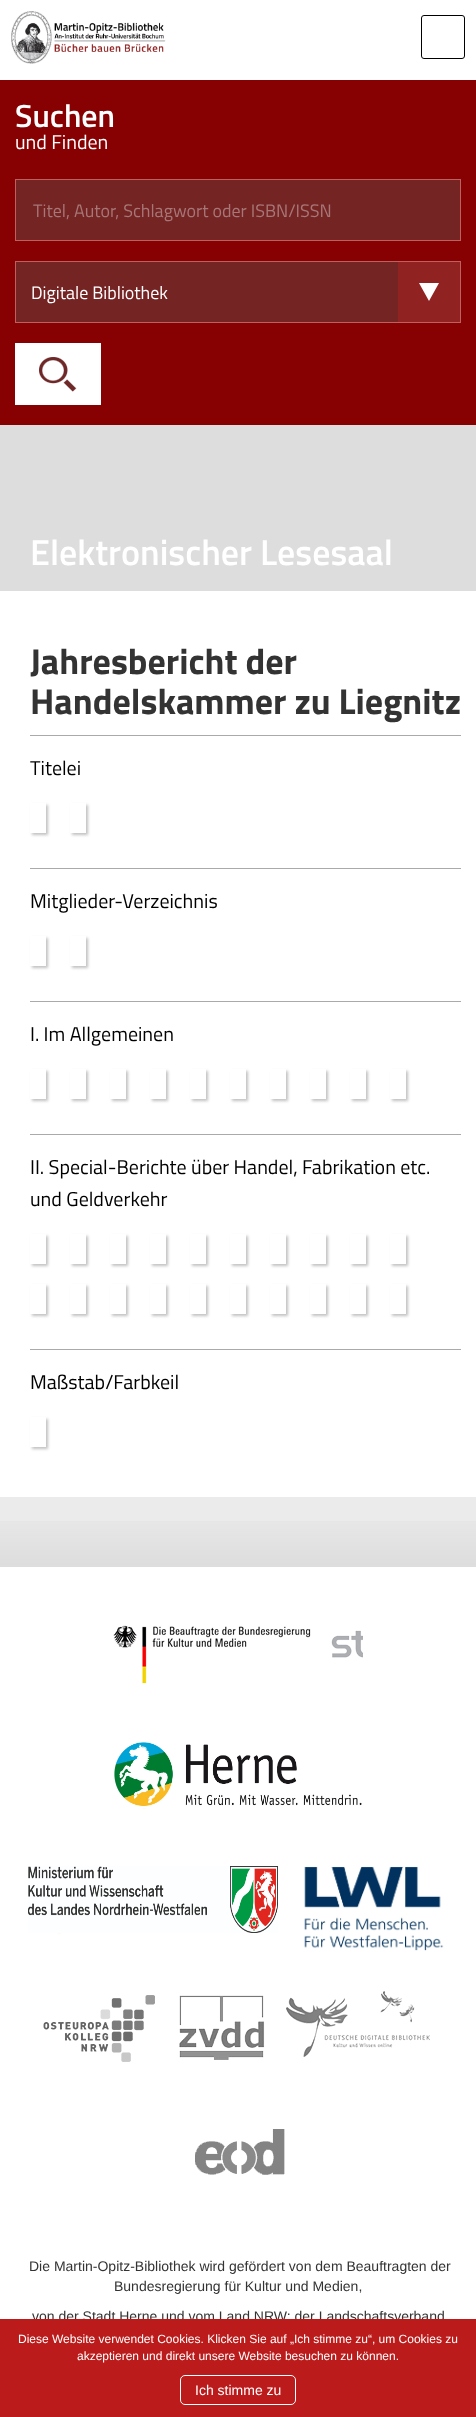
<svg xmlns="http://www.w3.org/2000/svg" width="476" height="2417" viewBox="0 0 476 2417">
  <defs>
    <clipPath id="clip1"><path d="M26 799H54V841H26ZM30 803H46V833H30Z" clip-rule="evenodd"/></clipPath>
    <clipPath id="clip2"><path d="M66 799H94V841H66ZM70 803H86V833H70Z" clip-rule="evenodd"/></clipPath>
    <clipPath id="clip3"><path d="M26 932H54V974H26ZM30 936H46V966H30Z" clip-rule="evenodd"/></clipPath>
    <clipPath id="clip4"><path d="M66 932H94V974H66ZM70 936H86V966H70Z" clip-rule="evenodd"/></clipPath>
    <clipPath id="clip5"><path d="M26 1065H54V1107H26ZM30 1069H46V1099H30Z" clip-rule="evenodd"/></clipPath>
    <clipPath id="clip6"><path d="M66 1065H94V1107H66ZM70 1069H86V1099H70Z" clip-rule="evenodd"/></clipPath>
    <clipPath id="clip7"><path d="M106 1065H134V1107H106ZM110 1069H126V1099H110Z" clip-rule="evenodd"/></clipPath>
    <clipPath id="clip8"><path d="M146 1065H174V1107H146ZM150 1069H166V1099H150Z" clip-rule="evenodd"/></clipPath>
    <clipPath id="clip9"><path d="M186 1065H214V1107H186ZM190 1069H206V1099H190Z" clip-rule="evenodd"/></clipPath>
    <clipPath id="clip10"><path d="M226 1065H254V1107H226ZM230 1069H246V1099H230Z" clip-rule="evenodd"/></clipPath>
    <clipPath id="clip11"><path d="M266 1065H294V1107H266ZM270 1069H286V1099H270Z" clip-rule="evenodd"/></clipPath>
    <clipPath id="clip12"><path d="M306 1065H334V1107H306ZM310 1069H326V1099H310Z" clip-rule="evenodd"/></clipPath>
    <clipPath id="clip13"><path d="M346 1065H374V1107H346ZM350 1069H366V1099H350Z" clip-rule="evenodd"/></clipPath>
    <clipPath id="clip14"><path d="M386 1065H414V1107H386ZM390 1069H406V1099H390Z" clip-rule="evenodd"/></clipPath>
    <clipPath id="clip15"><path d="M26 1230H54V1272H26ZM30 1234H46V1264H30Z" clip-rule="evenodd"/></clipPath>
    <clipPath id="clip16"><path d="M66 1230H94V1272H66ZM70 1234H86V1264H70Z" clip-rule="evenodd"/></clipPath>
    <clipPath id="clip17"><path d="M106 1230H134V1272H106ZM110 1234H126V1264H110Z" clip-rule="evenodd"/></clipPath>
    <clipPath id="clip18"><path d="M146 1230H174V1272H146ZM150 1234H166V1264H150Z" clip-rule="evenodd"/></clipPath>
    <clipPath id="clip19"><path d="M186 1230H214V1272H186ZM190 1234H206V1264H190Z" clip-rule="evenodd"/></clipPath>
    <clipPath id="clip20"><path d="M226 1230H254V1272H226ZM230 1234H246V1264H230Z" clip-rule="evenodd"/></clipPath>
    <clipPath id="clip21"><path d="M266 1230H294V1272H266ZM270 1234H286V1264H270Z" clip-rule="evenodd"/></clipPath>
    <clipPath id="clip22"><path d="M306 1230H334V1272H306ZM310 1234H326V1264H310Z" clip-rule="evenodd"/></clipPath>
    <clipPath id="clip23"><path d="M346 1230H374V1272H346ZM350 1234H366V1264H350Z" clip-rule="evenodd"/></clipPath>
    <clipPath id="clip24"><path d="M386 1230H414V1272H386ZM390 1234H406V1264H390Z" clip-rule="evenodd"/></clipPath>
    <clipPath id="clip25"><path d="M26 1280H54V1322H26ZM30 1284H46V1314H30Z" clip-rule="evenodd"/></clipPath>
    <clipPath id="clip26"><path d="M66 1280H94V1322H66ZM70 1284H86V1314H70Z" clip-rule="evenodd"/></clipPath>
    <clipPath id="clip27"><path d="M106 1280H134V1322H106ZM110 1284H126V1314H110Z" clip-rule="evenodd"/></clipPath>
    <clipPath id="clip28"><path d="M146 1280H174V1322H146ZM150 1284H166V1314H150Z" clip-rule="evenodd"/></clipPath>
    <clipPath id="clip29"><path d="M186 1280H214V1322H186ZM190 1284H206V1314H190Z" clip-rule="evenodd"/></clipPath>
    <clipPath id="clip30"><path d="M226 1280H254V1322H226ZM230 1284H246V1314H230Z" clip-rule="evenodd"/></clipPath>
    <clipPath id="clip31"><path d="M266 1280H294V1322H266ZM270 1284H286V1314H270Z" clip-rule="evenodd"/></clipPath>
    <clipPath id="clip32"><path d="M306 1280H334V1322H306ZM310 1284H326V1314H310Z" clip-rule="evenodd"/></clipPath>
    <clipPath id="clip33"><path d="M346 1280H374V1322H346ZM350 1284H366V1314H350Z" clip-rule="evenodd"/></clipPath>
    <clipPath id="clip34"><path d="M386 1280H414V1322H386ZM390 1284H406V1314H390Z" clip-rule="evenodd"/></clipPath>
    <clipPath id="clip35"><path d="M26 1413H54V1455H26ZM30 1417H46V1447H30Z" clip-rule="evenodd"/></clipPath>
  </defs>
  <rect width="100%" height="100%" fill="rgb(235,235,235)"/>
  <rect x="0" y="0" width="476" height="80" fill="rgb(255,255,255)"/>
  <image x="11" y="11" width="155" height="53" href="pic1.png"/>
  <rect x="421.5" y="15.5" width="43" height="43" rx="2.5" fill="none" stroke="rgb(0,0,0)"/>
  <rect x="0" y="80" width="476" height="345" fill="rgb(136,1,2)"/>
  <text x="15" y="127" font-family="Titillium" font-size="32" font-weight="600" fill="rgb(255,255,255)">Suchen</text>
  <text x="15" y="149" font-family="Titillium" font-size="20" fill="rgb(255,255,255)">und Finden</text>
  <rect x="15.5" y="179.5" width="445" height="61" fill="rgb(117,36,36)" stroke="rgb(190,96,96)"/>
  <text x="33" y="217" font-family="Titillium" font-size="18" fill="rgb(167,118,118)">Titel, Autor, Schlagwort oder ISBN/ISSN</text>
  <rect x="16" y="262" width="382" height="60" fill="rgb(117,36,36)"/>
  <rect x="15.5" y="261.5" width="445" height="61" fill="none" stroke="rgb(190,96,96)"/>
  <text x="31" y="299" font-family="Titillium" font-size="18" fill="rgb(255,255,255)">Digitale Bibliothek</text>
  <rect x="398" y="262" width="62" height="60" fill="rgb(145,34,34)"/>
  <image x="419" y="283" width="20" height="18" href="pic2.png"/>
  <rect x="15" y="343" width="86" height="62" fill="rgb(255,255,255)"/>
  <image x="39" y="357" width="38" height="35" href="pic3.png"/>
  <rect x="0" y="425" width="476" height="166" fill="rgb(221,221,221)"/>
  <text x="30" y="565" font-family="Titillium" font-size="36" font-weight="600" fill="rgb(255,255,255)">Elektronischer Lesesaal</text>
  <rect x="0" y="591" width="476" height="906" fill="rgb(255,255,255)"/>
  <g font-family="Titillium" font-size="36" font-weight="bold" fill="rgb(51,51,51)">
    <text>
      <tspan x="30" y="674">Jahresbericht der</tspan>
      <tspan x="30" y="714">Handelskammer zu Liegnitz</tspan>
    </text>
  </g>
  <rect x="30" y="735" width="431" height="1" fill="rgb(170,170,170)"/>
  <text x="30" y="775" font-family="Titillium" font-size="20" fill="rgb(0,0,0)">Titelei</text>
  <g clip-path="url(#clip1)">
    <rect x="32" y="805" width="16" height="30" fill="rgba(50,50,50,0.3)" filter="blur(1.5px)"/>
  </g>
  <g clip-path="url(#clip2)">
    <rect x="72" y="805" width="16" height="30" fill="rgba(50,50,50,0.3)" filter="blur(1.5px)"/>
  </g>
  <rect x="30" y="868" width="431" height="1" fill="rgb(170,170,170)"/>
  <text x="30" y="908" font-family="Titillium" font-size="20" fill="rgb(0,0,0)">Mitglieder-Verzeichnis</text>
  <g clip-path="url(#clip3)">
    <rect x="32" y="938" width="16" height="30" fill="rgba(50,50,50,0.3)" filter="blur(1.5px)"/>
  </g>
  <g clip-path="url(#clip4)">
    <rect x="72" y="938" width="16" height="30" fill="rgba(50,50,50,0.3)" filter="blur(1.5px)"/>
  </g>
  <rect x="30" y="1001" width="431" height="1" fill="rgb(170,170,170)"/>
  <text x="30" y="1041" font-family="Titillium" font-size="20" fill="rgb(0,0,0)">I. Im Allgemeinen</text>
  <g clip-path="url(#clip5)">
    <rect x="32" y="1071" width="16" height="30" fill="rgba(50,50,50,0.3)" filter="blur(1.5px)"/>
  </g>
  <g clip-path="url(#clip6)">
    <rect x="72" y="1071" width="16" height="30" fill="rgba(50,50,50,0.3)" filter="blur(1.5px)"/>
  </g>
  <g clip-path="url(#clip7)">
    <rect x="112" y="1071" width="16" height="30" fill="rgba(50,50,50,0.3)" filter="blur(1.5px)"/>
  </g>
  <g clip-path="url(#clip8)">
    <rect x="152" y="1071" width="16" height="30" fill="rgba(50,50,50,0.3)" filter="blur(1.5px)"/>
  </g>
  <g clip-path="url(#clip9)">
    <rect x="192" y="1071" width="16" height="30" fill="rgba(50,50,50,0.3)" filter="blur(1.5px)"/>
  </g>
  <g clip-path="url(#clip10)">
    <rect x="232" y="1071" width="16" height="30" fill="rgba(50,50,50,0.3)" filter="blur(1.5px)"/>
  </g>
  <g clip-path="url(#clip11)">
    <rect x="272" y="1071" width="16" height="30" fill="rgba(50,50,50,0.3)" filter="blur(1.5px)"/>
  </g>
  <g clip-path="url(#clip12)">
    <rect x="312" y="1071" width="16" height="30" fill="rgba(50,50,50,0.3)" filter="blur(1.5px)"/>
  </g>
  <g clip-path="url(#clip13)">
    <rect x="352" y="1071" width="16" height="30" fill="rgba(50,50,50,0.3)" filter="blur(1.5px)"/>
  </g>
  <g clip-path="url(#clip14)">
    <rect x="392" y="1071" width="16" height="30" fill="rgba(50,50,50,0.3)" filter="blur(1.5px)"/>
  </g>
  <rect x="30" y="1134" width="431" height="1" fill="rgb(170,170,170)"/>
  <g font-family="Titillium" font-size="20" fill="rgb(0,0,0)">
    <text>
      <tspan x="30" y="1174">II. Special-Berichte über Handel, Fabrikation etc.</tspan>
      <tspan x="30" y="1206">und Geldverkehr</tspan>
    </text>
  </g>
  <g clip-path="url(#clip15)">
    <rect x="32" y="1236" width="16" height="30" fill="rgba(50,50,50,0.3)" filter="blur(1.5px)"/>
  </g>
  <g clip-path="url(#clip16)">
    <rect x="72" y="1236" width="16" height="30" fill="rgba(50,50,50,0.3)" filter="blur(1.5px)"/>
  </g>
  <g clip-path="url(#clip17)">
    <rect x="112" y="1236" width="16" height="30" fill="rgba(50,50,50,0.3)" filter="blur(1.5px)"/>
  </g>
  <g clip-path="url(#clip18)">
    <rect x="152" y="1236" width="16" height="30" fill="rgba(50,50,50,0.3)" filter="blur(1.5px)"/>
  </g>
  <g clip-path="url(#clip19)">
    <rect x="192" y="1236" width="16" height="30" fill="rgba(50,50,50,0.3)" filter="blur(1.5px)"/>
  </g>
  <g clip-path="url(#clip20)">
    <rect x="232" y="1236" width="16" height="30" fill="rgba(50,50,50,0.3)" filter="blur(1.5px)"/>
  </g>
  <g clip-path="url(#clip21)">
    <rect x="272" y="1236" width="16" height="30" fill="rgba(50,50,50,0.3)" filter="blur(1.5px)"/>
  </g>
  <g clip-path="url(#clip22)">
    <rect x="312" y="1236" width="16" height="30" fill="rgba(50,50,50,0.3)" filter="blur(1.5px)"/>
  </g>
  <g clip-path="url(#clip23)">
    <rect x="352" y="1236" width="16" height="30" fill="rgba(50,50,50,0.3)" filter="blur(1.5px)"/>
  </g>
  <g clip-path="url(#clip24)">
    <rect x="392" y="1236" width="16" height="30" fill="rgba(50,50,50,0.3)" filter="blur(1.5px)"/>
  </g>
  <g clip-path="url(#clip25)">
    <rect x="32" y="1286" width="16" height="30" fill="rgba(50,50,50,0.3)" filter="blur(1.5px)"/>
  </g>
  <g clip-path="url(#clip26)">
    <rect x="72" y="1286" width="16" height="30" fill="rgba(50,50,50,0.3)" filter="blur(1.5px)"/>
  </g>
  <g clip-path="url(#clip27)">
    <rect x="112" y="1286" width="16" height="30" fill="rgba(50,50,50,0.3)" filter="blur(1.5px)"/>
  </g>
  <g clip-path="url(#clip28)">
    <rect x="152" y="1286" width="16" height="30" fill="rgba(50,50,50,0.3)" filter="blur(1.5px)"/>
  </g>
  <g clip-path="url(#clip29)">
    <rect x="192" y="1286" width="16" height="30" fill="rgba(50,50,50,0.3)" filter="blur(1.5px)"/>
  </g>
  <g clip-path="url(#clip30)">
    <rect x="232" y="1286" width="16" height="30" fill="rgba(50,50,50,0.3)" filter="blur(1.5px)"/>
  </g>
  <g clip-path="url(#clip31)">
    <rect x="272" y="1286" width="16" height="30" fill="rgba(50,50,50,0.3)" filter="blur(1.5px)"/>
  </g>
  <g clip-path="url(#clip32)">
    <rect x="312" y="1286" width="16" height="30" fill="rgba(50,50,50,0.3)" filter="blur(1.5px)"/>
  </g>
  <g clip-path="url(#clip33)">
    <rect x="352" y="1286" width="16" height="30" fill="rgba(50,50,50,0.3)" filter="blur(1.5px)"/>
  </g>
  <g clip-path="url(#clip34)">
    <rect x="392" y="1286" width="16" height="30" fill="rgba(50,50,50,0.3)" filter="blur(1.5px)"/>
  </g>
  <rect x="30" y="1349" width="431" height="1" fill="rgb(170,170,170)"/>
  <text x="30" y="1389" font-family="Titillium" font-size="20" fill="rgb(0,0,0)">Maßstab/Farbkeil</text>
  <g clip-path="url(#clip35)">
    <rect x="32" y="1419" width="16" height="30" fill="rgba(50,50,50,0.3)" filter="blur(1.5px)"/>
  </g>
  <rect x="0" y="1567" width="476" height="752" fill="rgb(255,255,255)"/>
  <image x="0" y="1521" width="476" height="46" href="pic4.png"/>
  <image x="113" y="1625" width="250" height="59" href="pic5.png"/>
  <image x="113" y="1808" width="250" height="1" href="pic6.png"/>
  <image x="113" y="1742" width="250" height="66" href="pic7.png"/>
  <image x="28" y="1933" width="250" height="1" href="pic6.png"/>
  <image x="28" y="1866" width="250" height="67" href="pic8.png"/>
  <image x="298" y="1866" width="150" height="85" href="pic9.png"/>
  <image x="43" y="1995" width="112" height="67" href="pic10.png"/>
  <image x="179" y="1995" width="86" height="65" href="pic11.png"/>
  <image x="286" y="1991" width="144" height="66" href="pic12.png"/>
  <image x="195" y="2129" width="90" height="46" href="pic13.png"/>
  <g font-family="Liberation Sans" font-size="14" fill="rgb(51,51,51)">
    <text x="29" y="2271">Die Martin-Opitz-Bibliothek wird gefördert von dem Beauftragten der</text>
    <text x="114" y="2291">Bundesregierung für Kultur und Medien,</text>
    <text x="32" y="2321">von der Stadt Herne und vom Land NRW; der Landschaftsverband</text>
  </g>
  <rect x="0" y="2319" width="476" height="98" fill="rgb(188,27,27)"/>
  <g font-family="Liberation Sans" font-size="12" fill="rgb(255,255,255)">
    <text x="18" y="2343">Diese Website verwendet Cookies. Klicken Sie auf „Ich stimme zu“, um Cookies zu</text>
    <text x="77" y="2360">akzeptieren und direkt unsere Website besuchen zu können.</text>
  </g>
  <rect x="180.5" y="2375.5" width="115" height="29" rx="4.5" fill="none" stroke="rgb(255,255,255)"/>
  <text x="195" y="2395" font-family="Liberation Sans" font-size="14" fill="rgb(255,255,255)">Ich stimme zu</text>
</svg>
